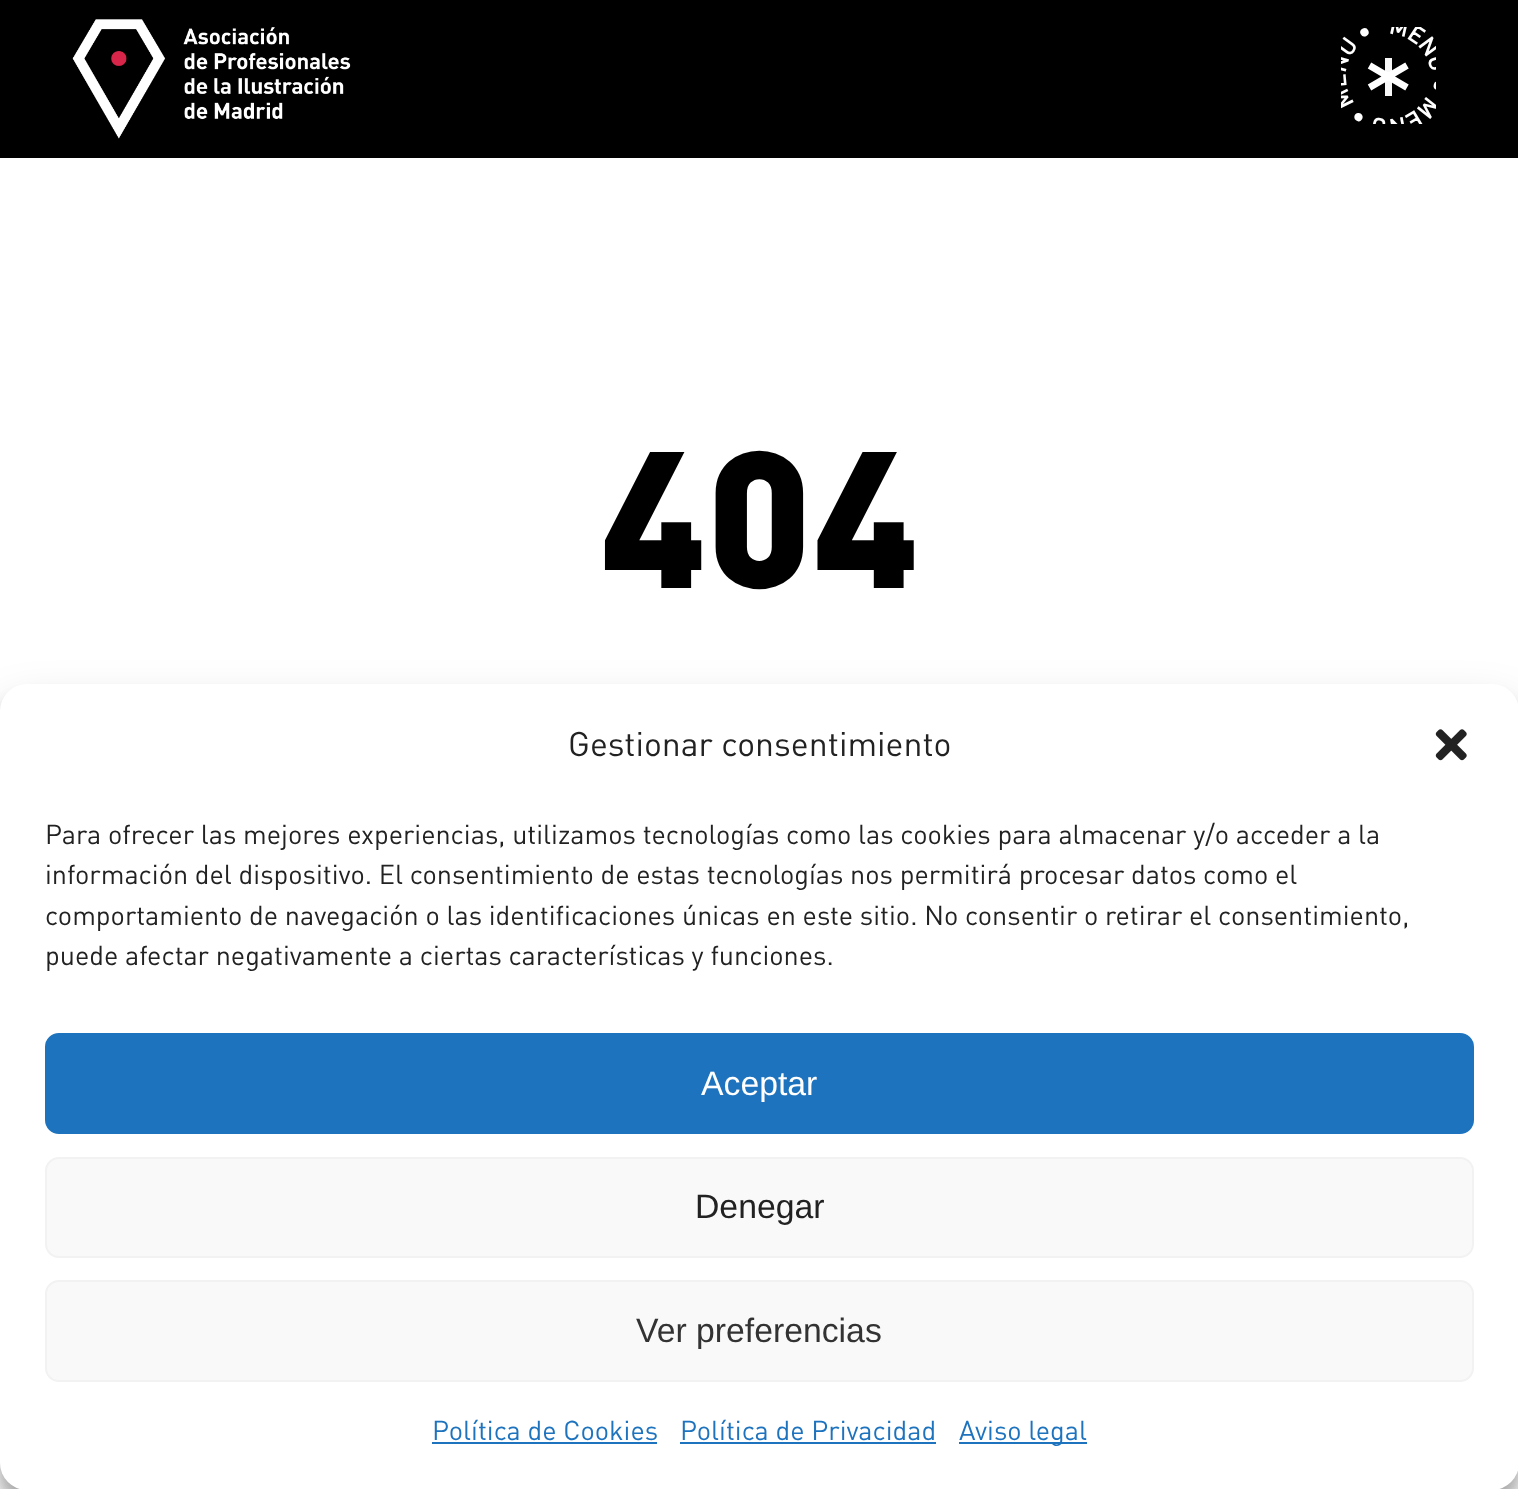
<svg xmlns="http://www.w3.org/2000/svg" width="1518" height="1489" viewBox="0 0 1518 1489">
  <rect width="100%" height="100%" fill="rgb(255,255,255)"/>
  <rect x="0" y="0" width="1518" height="158" fill="rgb(0,0,0)"/>
  <image x="72" y="19" width="279" height="120" href="pic1.png"/>
  <image x="1341" y="27" width="95" height="97" href="pic2.png"/>
  <rect x="1385" y="58" width="7" height="38" fill="rgb(248,248,248)"/>
  <path d="M1369.5 65.5L1407 87.5M1369.5 87.5L1407 65.5" fill="none" stroke="rgb(255,255,255)" stroke-width="6.8"/>
  <text x="600" y="588" font-family="DIN" font-size="191" font-weight="900" fill="rgb(0,0,0)">404</text>
  <rect x="0" y="698" width="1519" height="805" rx="27" fill="rgba(0,0,0,0.23)" filter="blur(7px)"/>
  <rect x="0" y="707" width="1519" height="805" rx="27" fill="rgba(0,0,0,0.19)" filter="blur(22.5px)"/>
  <rect x="0" y="684" width="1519" height="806" rx="27" fill="rgb(255,255,255)"/>
  <text x="568" y="756" font-family="DIN" font-size="33.75" fill="rgb(34,34,34)">Gestionar consentimiento</text>
  <image x="1435" y="729" width="32" height="32" href="pic3.png"/>
  <g font-family="DIN" font-size="27" fill="rgb(34,34,34)">
    <text>
      <tspan x="45" y="844">Para ofrecer las mejores experiencias, utilizamos tecnologías como las cookies para almacenar y/o acceder a la</tspan>
      <tspan x="45" y="884">información del dispositivo. El consentimiento de estas tecnologías nos permitirá procesar datos como el</tspan>
      <tspan x="45" y="925">comportamiento de navegación o las identificaciones únicas en este sitio. No consentir o retirar el consentimiento,</tspan>
      <tspan x="45" y="965">puede afectar negativamente a ciertas características y funciones.</tspan>
    </text>
  </g>
  <rect x="46" y="1034" width="1427" height="99" rx="13" fill="rgb(30,115,190)" stroke="rgb(30,115,190)" stroke-width="2"/>
  <text x="701" y="1095" font-family="Liberation Sans" font-size="33.75" fill="rgb(255,255,255)">Aceptar</text>
  <rect x="46" y="1158" width="1427" height="99" rx="13" fill="rgb(249,249,249)" stroke="rgb(242,242,242)" stroke-width="2"/>
  <text x="695" y="1218" font-family="Liberation Sans" font-size="33.75" fill="rgb(34,34,34)">Denegar</text>
  <rect x="46" y="1281" width="1427" height="100" rx="13" fill="rgb(249,249,249)" stroke="rgb(242,242,242)" stroke-width="2"/>
  <text x="636" y="1342" font-family="Liberation Sans" font-size="33.75" fill="rgb(51,51,51)">Ver preferencias</text>
  <text x="432" y="1440" font-family="DIN" font-size="27" fill="rgb(30,115,190)">Política de Cookies</text>
  <rect x="432" y="1442" width="225" height="2" fill="rgb(30,115,190)"/>
  <text x="680" y="1440" font-family="DIN" font-size="27" fill="rgb(30,115,190)">Política de Privacidad</text>
  <rect x="680" y="1442" width="256" height="2" fill="rgb(30,115,190)"/>
  <rect x="959" y="1442" width="128" height="2" fill="rgb(30,115,190)"/>
  <text x="959" y="1440" font-family="DIN" font-size="27" fill="rgb(30,115,190)">Aviso legal</text>
</svg>
